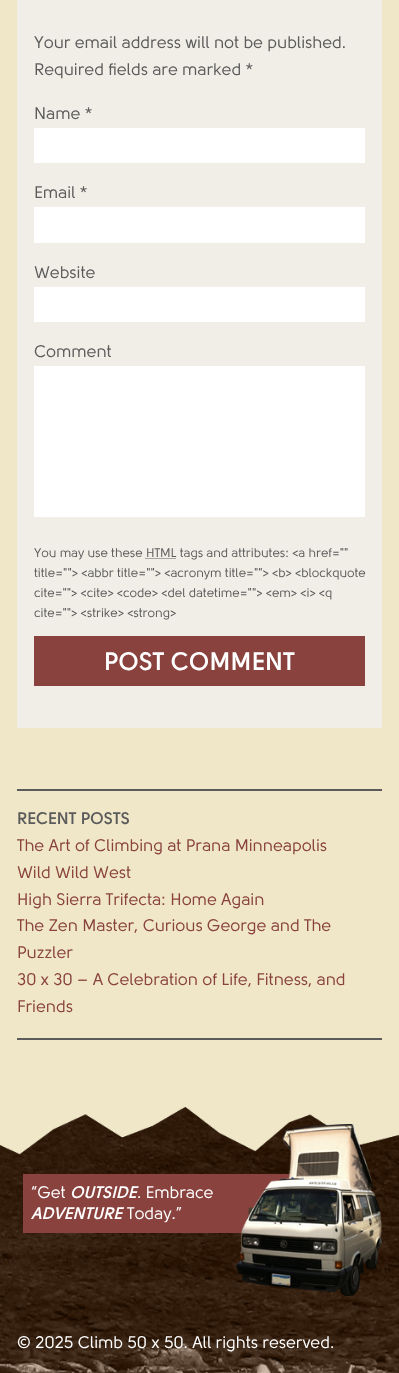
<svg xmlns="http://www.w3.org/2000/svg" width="399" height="1373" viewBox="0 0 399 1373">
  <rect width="100%" height="100%" fill="rgb(240,231,200)"/>
  <rect x="17" y="0" width="365" height="728" fill="rgb(240,238,230)"/>
  <g font-family="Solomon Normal" font-size="16.75" fill="rgb(91,91,91)">
    <text>
      <tspan x="34" y="48">Your email address will not be published.</tspan>
      <tspan x="34" y="75">Required fields are marked *</tspan>
    </text>
    <text x="34" y="119">Name *</text>
  </g>
  <rect x="34" y="128" width="331" height="35" fill="rgb(255,255,255)"/>
  <text x="34" y="198" font-family="Solomon Normal" font-size="16.75" fill="rgb(91,91,91)">Email *</text>
  <rect x="34" y="207" width="331" height="36" fill="rgb(255,255,255)"/>
  <text x="34" y="278" font-family="Solomon Normal" font-size="16.75" fill="rgb(91,91,91)">Website</text>
  <rect x="34" y="287" width="331" height="35" fill="rgb(255,255,255)"/>
  <text x="34" y="357" font-family="Solomon Normal" font-size="16.75" fill="rgb(91,91,91)">Comment</text>
  <rect x="34" y="366" width="331" height="151" fill="rgb(255,255,255)"/>
  <text x="34" y="557" font-family="Solomon Normal" font-size="12.6" fill="rgb(91,91,91)">You may use these HTML tags and attributes: &lt;a href=""</text>
  <path d="M145.5 558.5H176" fill="none" stroke="rgb(91,91,91)" stroke-dasharray="1 1"/>
  <g font-family="Solomon Normal" font-size="12.6" fill="rgb(91,91,91)">
    <text>
      <tspan x="34" y="577">title=""&gt; &lt;abbr title=""&gt; &lt;acronym title=""&gt; &lt;b&gt; &lt;blockquote</tspan>
      <tspan x="34" y="597">cite=""&gt; &lt;cite&gt; &lt;code&gt; &lt;del datetime=""&gt; &lt;em&gt; &lt;i&gt; &lt;q</tspan>
      <tspan x="34" y="617">cite=""&gt; &lt;strike&gt; &lt;strong&gt;</tspan>
    </text>
  </g>
  <rect x="34" y="636" width="331" height="50" fill="rgb(137,66,62)"/>
  <text x="104" y="670" font-family="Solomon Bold" font-size="25.25" font-weight="bold" fill="rgb(255,255,255)">POST COMMENT</text>
  <rect x="17" y="789" width="365" height="2" fill="rgb(91,91,91)"/>
  <rect x="17" y="1038" width="365" height="2" fill="rgb(91,91,91)"/>
  <text x="17" y="824" font-family="Solomon Bold" font-size="16.75" font-weight="bold" fill="rgb(91,91,91)">RECENT POSTS</text>
  <g font-family="Solomon Normal" font-size="16.75" fill="rgb(137,66,62)">
    <text>
      <tspan x="17" y="851">The Art of Climbing at Prana Minneapolis</tspan>
      <tspan x="17" y="878">Wild Wild West</tspan>
      <tspan x="17" y="905">High Sierra Trifecta: Home Again</tspan>
      <tspan x="17" y="931">The Zen Master, Curious George and The</tspan>
      <tspan x="17" y="958">Puzzler</tspan>
      <tspan x="17" y="985">30 x 30 – A Celebration of Life, Fitness, and</tspan>
      <tspan x="17" y="1012">Friends</tspan>
    </text>
  </g>
  <image x="0" y="1107" width="399" height="266" href="pic1.png"/>
  <rect x="23" y="1174" width="267" height="59" fill="rgb(137,66,62)"/>
  <text x="31" y="1198" font-family="Solomon Normal" font-size="16.75" fill="rgb(255,255,255)">“Get</text>
  <text x="70" y="1198" font-family="Solomon Bold" font-size="16.75" font-weight="bold" font-style="italic" fill="rgb(255,255,255)">OUTSIDE</text>
  <text x="137" y="1198" font-family="Solomon Normal" font-size="16.75" fill="rgb(255,255,255)">. Embrace</text>
  <text x="31" y="1219" font-family="Solomon Bold" font-size="16.75" font-weight="bold" font-style="italic" fill="rgb(255,255,255)">ADVENTURE</text>
  <text x="127" y="1219" font-family="Solomon Normal" font-size="16.75" fill="rgb(255,255,255)">Today.”</text>
  <image x="236" y="1124" width="146" height="172" href="pic2.png"/>
  <text x="17" y="1348" font-family="Solomon Normal" font-size="16.75" fill="rgb(255,255,255)">© 2025 Climb 50 x 50. All rights reserved.</text>
</svg>
